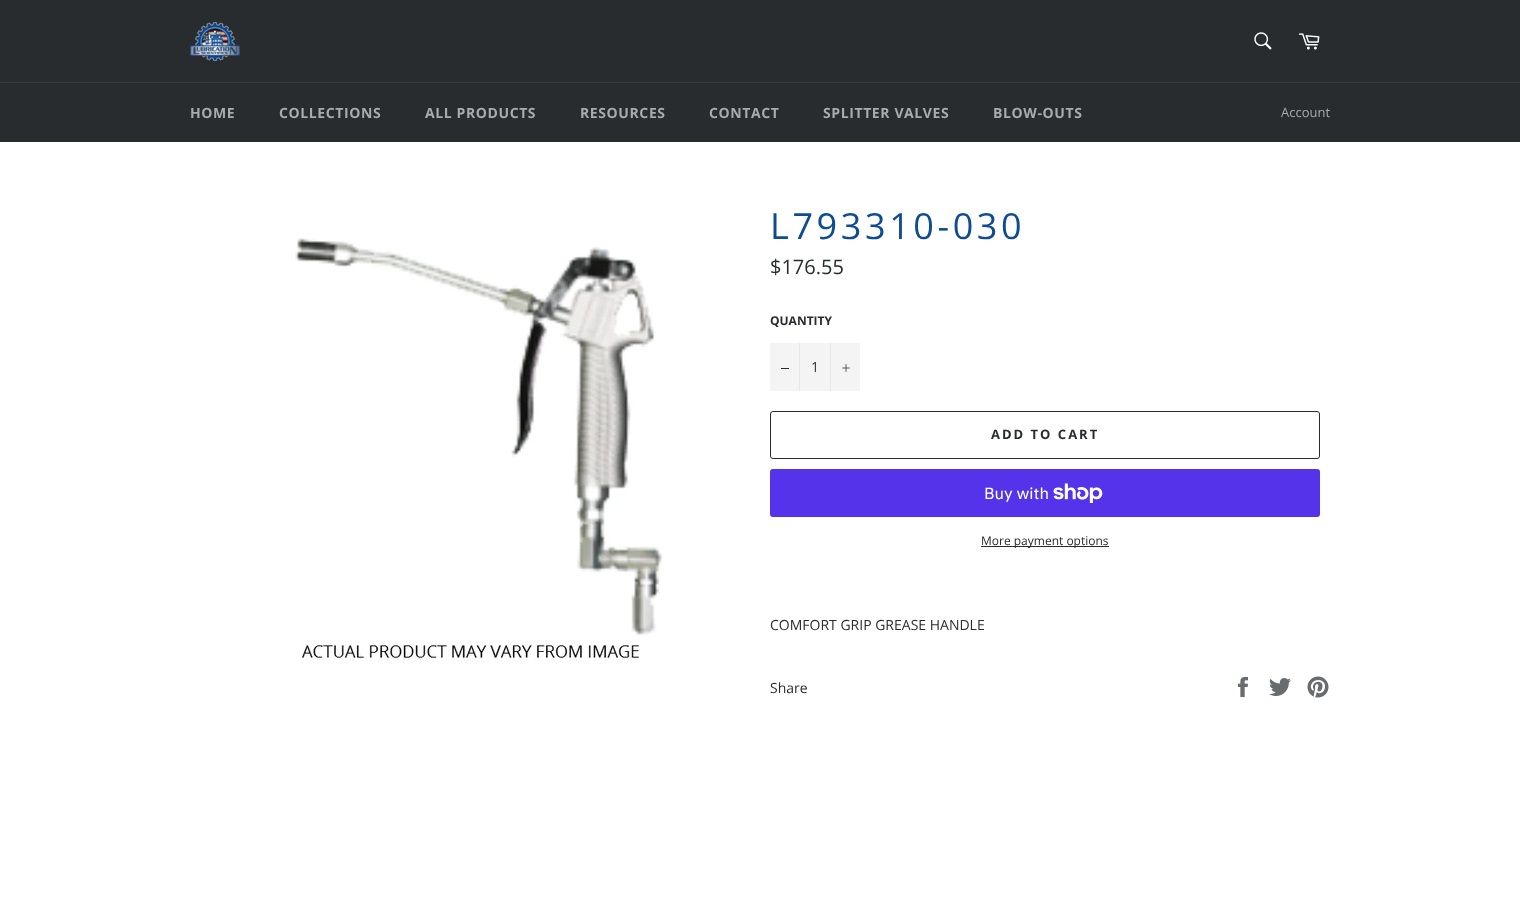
<svg xmlns="http://www.w3.org/2000/svg" width="1520" height="910" viewBox="0 0 1520 910">
  <rect width="100%" height="100%" fill="rgb(255,255,255)"/>
  <rect x="0" y="0" width="1520" height="82" fill="rgb(40,44,47)"/>
  <image x="190" y="22" width="50" height="39" href="pic1.png"/>
  <image x="1254" y="32" width="18" height="18" href="pic2.png"/>
  <image x="1298" y="33" width="22" height="17" href="pic3.png"/>
  <rect x="0" y="83" width="1520" height="59" fill="rgb(40,44,47)"/>
  <rect x="0" y="82" width="1520" height="1" fill="rgb(52,57,61)"/>
  <g font-family="Open Sans" font-size="14" font-weight="bold" letter-spacing="0.6" fill="rgb(169,171,172)">
    <text x="190" y="118">HOME</text>
    <text x="279" y="118">COLLECTIONS</text>
    <text x="425" y="118">ALL PRODUCTS</text>
    <text x="580" y="118">RESOURCES</text>
    <text x="709" y="118">CONTACT</text>
    <text x="823" y="118">SPLITTER VALVES</text>
    <text x="993" y="118">BLOW-OUTS</text>
  </g>
  <text x="1281" y="117" font-family="Open Sans" font-size="13" fill="rgb(169,171,172)">Account</text>
  <image x="295" y="237" width="368" height="424" href="pic4.png"/>
  <text x="770" y="239" font-family="Open Sans" font-size="36" letter-spacing="3.6" fill="rgb(13,76,146)">L793310-030</text>
  <text x="770" y="274" font-family="Open Sans" font-size="20" fill="rgb(40,44,47)">$176.55</text>
  <text x="770" y="325" font-family="Open Sans" font-size="12" font-weight="bold" fill="rgb(40,44,47)">QUANTITY</text>
  <rect x="770" y="343" width="90" height="48" fill="rgb(244,244,244)"/>
  <rect x="799" y="343" width="1" height="48" fill="rgb(231,231,231)"/>
  <rect x="781" y="368" width="8" height="1" fill="rgb(40,44,47)"/>
  <text x="811" y="372" font-family="Open Sans" font-size="14" fill="rgb(51,51,51)">1</text>
  <rect x="830" y="343" width="1" height="48" fill="rgb(231,231,231)"/>
  <image x="842" y="364" width="8" height="8" href="pic5.png"/>
  <rect x="770.5" y="411.5" width="549" height="47" rx="2.5" fill="none" stroke="rgb(40,44,47)"/>
  <text x="991" y="439" font-family="Open Sans" font-size="13" font-weight="bold" letter-spacing="2" fill="rgb(40,44,47)">ADD TO CART</text>
  <rect x="770" y="469" width="550" height="48" rx="3" fill="rgb(84,51,235)"/>
  <text x="984" y="499" font-family="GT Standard" font-size="16" fill="rgb(255,255,255)">Buy with</text>
  <image x="1053" y="483" width="50" height="20" href="pic6.png"/>
  <rect x="981" y="546" width="128" height="1" fill="rgb(40,44,47)"/>
  <text x="981" y="545" font-family="Open Sans" font-size="12" fill="rgb(40,44,47)">More payment options</text>
  <g font-family="Open Sans" font-size="14" fill="rgb(40,44,47)">
    <text x="770" y="630">COMFORT GRIP GREASE HANDLE</text>
    <text x="770" y="693">Share</text>
  </g>
  <image x="1238" y="677" width="10" height="20" href="pic7.png"/>
  <image x="1269" y="678" width="22" height="18" href="pic8.png"/>
  <image x="1307" y="676" width="22" height="22" href="pic9.png"/>
</svg>
